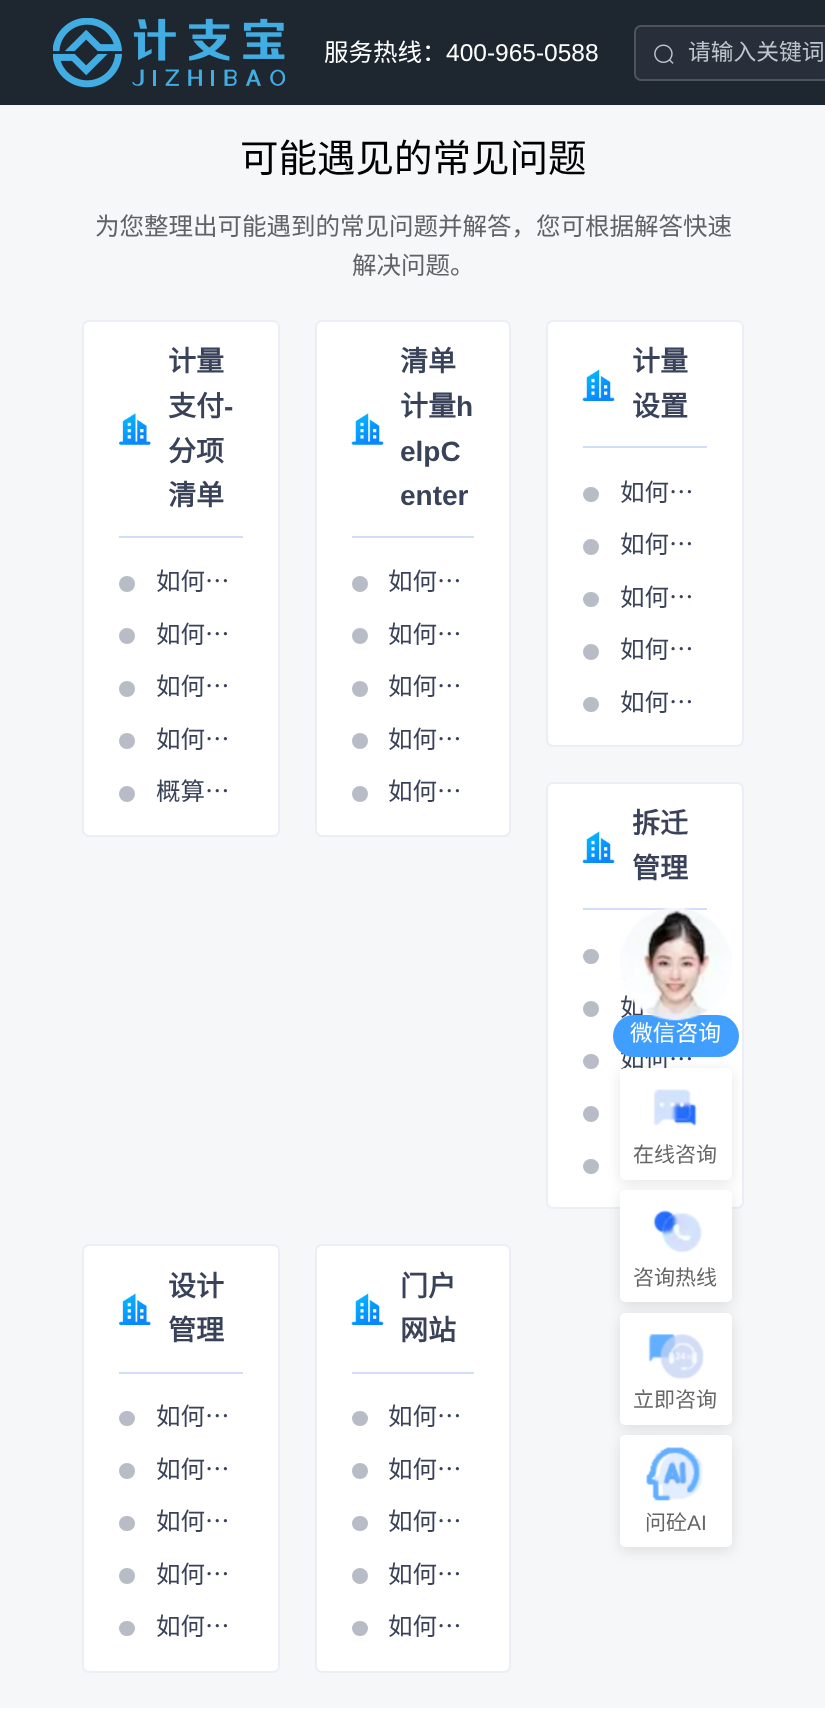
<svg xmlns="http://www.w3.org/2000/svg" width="825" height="1726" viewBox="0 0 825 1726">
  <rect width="100%" height="100%" fill="rgb(255,255,255)"/>
  <rect x="0" y="0" width="825" height="105" fill="rgb(30,39,47)"/>
  <image x="53" y="18" width="232" height="70" href="pic1.png"/>
  <text x="324" y="61" font-family="Noto Sans CJK SC" font-size="24.5" fill="rgb(255,255,255)">服务热线：</text>
  <text x="446" y="61" font-family="Liberation Sans" font-size="24.5" fill="rgb(255,255,255)">400-965-0588</text>
  <rect x="634" y="25" width="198" height="56" rx="7" fill="rgb(41,47,58)"/>
  <rect x="635" y="26" width="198" height="54" rx="6" fill="none" stroke="rgba(232,236,240,0.2)" stroke-width="2"/>
  <image x="654" y="44" width="20" height="20" href="pic2.png"/>
  <text x="688" y="60" font-family="Noto Sans CJK SC" font-size="22.75" fill="rgb(192,196,204)">请输入关键词</text>
  <rect x="0" y="105" width="825" height="1603" fill="rgb(246,247,249)"/>
  <text x="240" y="172" font-family="Noto Sans CJK SC" font-size="38.5" fill="rgb(0,0,0)">可能遇见的常见问题</text>
  <g font-family="Noto Sans CJK SC" font-size="24.5" fill="rgb(96,98,102)">
    <text x="95" y="235">为您整理出可能遇到的常见问题并解答，您可根据解答快速</text>
    <text x="352" y="274">解决问题。</text>
  </g>
  <rect x="83" y="321" width="196" height="515" rx="6" fill="rgb(255,255,255)" stroke="rgb(235,238,245)" stroke-width="2"/>
  <rect x="119" y="536" width="124" height="2" fill="rgb(210,221,249)"/>
  <image x="119" y="413" width="32" height="32" href="pic3.png"/>
  <g font-family="Noto Sans CJK SC" font-size="28" font-weight="bold" fill="rgb(57,66,88)">
    <text>
      <tspan x="168" y="371">计量</tspan>
      <tspan x="168" y="416">支付</tspan>
    </text>
  </g>
  <text x="224" y="416" font-family="Liberation Sans" font-size="28" font-weight="bold" fill="rgb(57,66,88)">-</text>
  <g font-family="Noto Sans CJK SC" font-size="28" font-weight="bold" fill="rgb(57,66,88)">
    <text>
      <tspan x="168" y="461">分项</tspan>
      <tspan x="168" y="505">清单</tspan>
    </text>
  </g>
  <circle cx="127" cy="584" r="8" fill="rgb(183,188,198)"/>
  <text x="156" y="590" font-family="Noto Sans CJK SC" font-size="24.5" fill="rgb(57,66,88)">如何…</text>
  <circle cx="127" cy="636" r="8" fill="rgb(183,188,198)"/>
  <text x="156" y="643" font-family="Noto Sans CJK SC" font-size="24.5" fill="rgb(57,66,88)">如何…</text>
  <circle cx="127" cy="689" r="8" fill="rgb(183,188,198)"/>
  <text x="156" y="695" font-family="Noto Sans CJK SC" font-size="24.5" fill="rgb(57,66,88)">如何…</text>
  <circle cx="127" cy="741" r="8" fill="rgb(183,188,198)"/>
  <text x="156" y="748" font-family="Noto Sans CJK SC" font-size="24.5" fill="rgb(57,66,88)">如何…</text>
  <circle cx="127" cy="794" r="8" fill="rgb(183,188,198)"/>
  <text x="156" y="800" font-family="Noto Sans CJK SC" font-size="24.5" fill="rgb(57,66,88)">概算…</text>
  <rect x="316" y="321" width="194" height="515" rx="6" fill="rgb(255,255,255)" stroke="rgb(235,238,245)" stroke-width="2"/>
  <rect x="352" y="536" width="122" height="2" fill="rgb(210,221,249)"/>
  <image x="351" y="413" width="33" height="32" href="pic4.png"/>
  <g font-family="Noto Sans CJK SC" font-size="28" font-weight="bold" fill="rgb(57,66,88)">
    <text>
      <tspan x="400" y="371">清单</tspan>
      <tspan x="400" y="416">计量</tspan>
    </text>
  </g>
  <g font-family="Liberation Sans" font-size="28" font-weight="bold" fill="rgb(57,66,88)">
    <text x="456" y="416">h</text>
    <text>
      <tspan x="400" y="461">elpC</tspan>
      <tspan x="400" y="505">enter</tspan>
    </text>
  </g>
  <circle cx="360" cy="584" r="8" fill="rgb(183,188,198)"/>
  <text x="388" y="590" font-family="Noto Sans CJK SC" font-size="24.5" fill="rgb(57,66,88)">如何…</text>
  <circle cx="360" cy="636" r="8" fill="rgb(183,188,198)"/>
  <text x="388" y="643" font-family="Noto Sans CJK SC" font-size="24.5" fill="rgb(57,66,88)">如何…</text>
  <circle cx="360" cy="689" r="8" fill="rgb(183,188,198)"/>
  <text x="388" y="695" font-family="Noto Sans CJK SC" font-size="24.5" fill="rgb(57,66,88)">如何…</text>
  <circle cx="360" cy="741" r="8" fill="rgb(183,188,198)"/>
  <text x="388" y="748" font-family="Noto Sans CJK SC" font-size="24.5" fill="rgb(57,66,88)">如何…</text>
  <circle cx="360" cy="794" r="8" fill="rgb(183,188,198)"/>
  <text x="388" y="800" font-family="Noto Sans CJK SC" font-size="24.5" fill="rgb(57,66,88)">如何…</text>
  <rect x="547" y="321" width="196" height="425" rx="6" fill="rgb(255,255,255)" stroke="rgb(235,238,245)" stroke-width="2"/>
  <rect x="583" y="446" width="124" height="2" fill="rgb(210,221,249)"/>
  <image x="582" y="369" width="33" height="32" href="pic5.png"/>
  <g font-family="Noto Sans CJK SC" font-size="28" font-weight="bold" fill="rgb(57,66,88)">
    <text>
      <tspan x="632" y="371">计量</tspan>
      <tspan x="632" y="416">设置</tspan>
    </text>
  </g>
  <rect x="583" y="487" width="16" height="15" rx="7.5" fill="rgb(183,188,198)"/>
  <text x="620" y="501" font-family="Noto Sans CJK SC" font-size="24.5" fill="rgb(57,66,88)">如何…</text>
  <circle cx="591" cy="547" r="8" fill="rgb(183,188,198)"/>
  <text x="620" y="553" font-family="Noto Sans CJK SC" font-size="24.5" fill="rgb(57,66,88)">如何…</text>
  <rect x="583" y="592" width="16" height="15" rx="7.5" fill="rgb(183,188,198)"/>
  <text x="620" y="606" font-family="Noto Sans CJK SC" font-size="24.5" fill="rgb(57,66,88)">如何…</text>
  <circle cx="591" cy="652" r="8" fill="rgb(183,188,198)"/>
  <text x="620" y="658" font-family="Noto Sans CJK SC" font-size="24.5" fill="rgb(57,66,88)">如何…</text>
  <rect x="583" y="697" width="16" height="15" rx="7.5" fill="rgb(183,188,198)"/>
  <text x="620" y="711" font-family="Noto Sans CJK SC" font-size="24.5" fill="rgb(57,66,88)">如何…</text>
  <rect x="547" y="783" width="196" height="425" rx="6" fill="rgb(255,255,255)" stroke="rgb(235,238,245)" stroke-width="2"/>
  <rect x="583" y="908" width="124" height="2" fill="rgb(210,221,249)"/>
  <image x="582" y="831" width="33" height="32" href="pic5.png"/>
  <g font-family="Noto Sans CJK SC" font-size="28" font-weight="bold" fill="rgb(57,66,88)">
    <text>
      <tspan x="632" y="833">拆迁</tspan>
      <tspan x="632" y="878">管理</tspan>
    </text>
  </g>
  <rect x="583" y="949" width="16" height="15" rx="7.5" fill="rgb(183,188,198)"/>
  <circle cx="591" cy="1009" r="8" fill="rgb(183,188,198)"/>
  <text x="620" y="1016" font-family="Noto Sans CJK SC" font-size="24.5" fill="rgb(57,66,88)">如</text>
  <rect x="583" y="1054" width="16" height="15" rx="7.5" fill="rgb(183,188,198)"/>
  <text x="620" y="1068" font-family="Noto Sans CJK SC" font-size="24.5" fill="rgb(57,66,88)">如何…</text>
  <circle cx="591" cy="1114" r="8" fill="rgb(183,188,198)"/>
  <rect x="583" y="1159" width="16" height="15" rx="7.5" fill="rgb(183,188,198)"/>
  <rect x="83" y="1245" width="196" height="427" rx="6" fill="rgb(255,255,255)" stroke="rgb(235,238,245)" stroke-width="2"/>
  <rect x="119" y="1372" width="124" height="2" fill="rgb(210,221,249)"/>
  <image x="119" y="1293" width="32" height="32" href="pic6.png"/>
  <g font-family="Noto Sans CJK SC" font-size="28" font-weight="bold" fill="rgb(57,66,88)">
    <text>
      <tspan x="168" y="1296">设计</tspan>
      <tspan x="168" y="1340">管理</tspan>
    </text>
  </g>
  <rect x="119" y="1411" width="16" height="15" rx="7.5" fill="rgb(183,188,198)"/>
  <text x="156" y="1425" font-family="Noto Sans CJK SC" font-size="24.5" fill="rgb(57,66,88)">如何…</text>
  <circle cx="127" cy="1471" r="8" fill="rgb(183,188,198)"/>
  <text x="156" y="1478" font-family="Noto Sans CJK SC" font-size="24.5" fill="rgb(57,66,88)">如何…</text>
  <rect x="119" y="1516" width="16" height="15" rx="7.5" fill="rgb(183,188,198)"/>
  <text x="156" y="1530" font-family="Noto Sans CJK SC" font-size="24.5" fill="rgb(57,66,88)">如何…</text>
  <circle cx="127" cy="1576" r="8" fill="rgb(183,188,198)"/>
  <text x="156" y="1583" font-family="Noto Sans CJK SC" font-size="24.5" fill="rgb(57,66,88)">如何…</text>
  <rect x="119" y="1621" width="16" height="15" rx="7.5" fill="rgb(183,188,198)"/>
  <text x="156" y="1635" font-family="Noto Sans CJK SC" font-size="24.5" fill="rgb(57,66,88)">如何…</text>
  <rect x="316" y="1245" width="194" height="427" rx="6" fill="rgb(255,255,255)" stroke="rgb(235,238,245)" stroke-width="2"/>
  <rect x="352" y="1372" width="122" height="2" fill="rgb(210,221,249)"/>
  <image x="351" y="1293" width="33" height="32" href="pic7.png"/>
  <g font-family="Noto Sans CJK SC" font-size="28" font-weight="bold" fill="rgb(57,66,88)">
    <text>
      <tspan x="400" y="1296">门户</tspan>
      <tspan x="400" y="1340">网站</tspan>
    </text>
  </g>
  <rect x="352" y="1411" width="16" height="15" rx="7.5" fill="rgb(183,188,198)"/>
  <text x="388" y="1425" font-family="Noto Sans CJK SC" font-size="24.5" fill="rgb(57,66,88)">如何…</text>
  <circle cx="360" cy="1471" r="8" fill="rgb(183,188,198)"/>
  <text x="388" y="1478" font-family="Noto Sans CJK SC" font-size="24.5" fill="rgb(57,66,88)">如何…</text>
  <rect x="352" y="1516" width="16" height="15" rx="7.5" fill="rgb(183,188,198)"/>
  <text x="388" y="1530" font-family="Noto Sans CJK SC" font-size="24.5" fill="rgb(57,66,88)">如何…</text>
  <circle cx="360" cy="1576" r="8" fill="rgb(183,188,198)"/>
  <text x="388" y="1583" font-family="Noto Sans CJK SC" font-size="24.5" fill="rgb(57,66,88)">如何…</text>
  <rect x="352" y="1621" width="16" height="15" rx="7.5" fill="rgb(183,188,198)"/>
  <text x="388" y="1635" font-family="Noto Sans CJK SC" font-size="24.5" fill="rgb(57,66,88)">如何…</text>
  <rect x="613" y="1015" width="126" height="42" rx="21" fill="rgb(64,158,255)"/>
  <image x="620" y="908" width="112" height="113" href="pic8.png"/>
  <text x="630" y="1041" font-family="Noto Sans CJK SC" font-size="22.75" fill="rgb(255,255,255)">微信咨询</text>
  <rect x="620" y="1071" width="112" height="112" rx="5" fill="rgba(0,0,0,0.1)" filter="blur(7px)"/>
  <rect x="620" y="1068" width="112" height="112" rx="5" fill="rgb(255,255,255)"/>
  <image x="653" y="1089" width="44" height="37" href="pic9.png"/>
  <text x="633" y="1162" font-family="Noto Sans CJK SC" font-size="21" fill="rgb(102,102,102)">在线咨询</text>
  <rect x="620" y="1194" width="112" height="112" rx="5" fill="rgba(0,0,0,0.1)" filter="blur(7px)"/>
  <rect x="620" y="1190" width="112" height="112" rx="5" fill="rgb(255,255,255)"/>
  <image x="653" y="1210" width="50" height="43" href="pic10.png"/>
  <text x="633" y="1285" font-family="Noto Sans CJK SC" font-size="21" fill="rgb(102,102,102)">咨询热线</text>
  <rect x="620" y="1316" width="112" height="112" rx="5" fill="rgba(0,0,0,0.1)" filter="blur(7px)"/>
  <rect x="620" y="1313" width="112" height="112" rx="5" fill="rgb(255,255,255)"/>
  <image x="648" y="1334" width="56" height="46" href="pic11.png"/>
  <text x="633" y="1407" font-family="Noto Sans CJK SC" font-size="21" fill="rgb(102,102,102)">立即咨询</text>
  <rect x="620" y="1439" width="112" height="112" rx="5" fill="rgba(0,0,0,0.1)" filter="blur(7px)"/>
  <rect x="620" y="1435" width="112" height="112" rx="5" fill="rgb(255,255,255)"/>
  <image x="646" y="1447" width="57" height="55" href="pic12.png"/>
  <text x="645" y="1530" font-family="Noto Sans CJK SC" font-size="21" fill="rgb(102,102,102)">问砼</text>
  <text x="687" y="1530" font-family="Liberation Sans" font-size="21" fill="rgb(102,102,102)">AI</text>
</svg>
